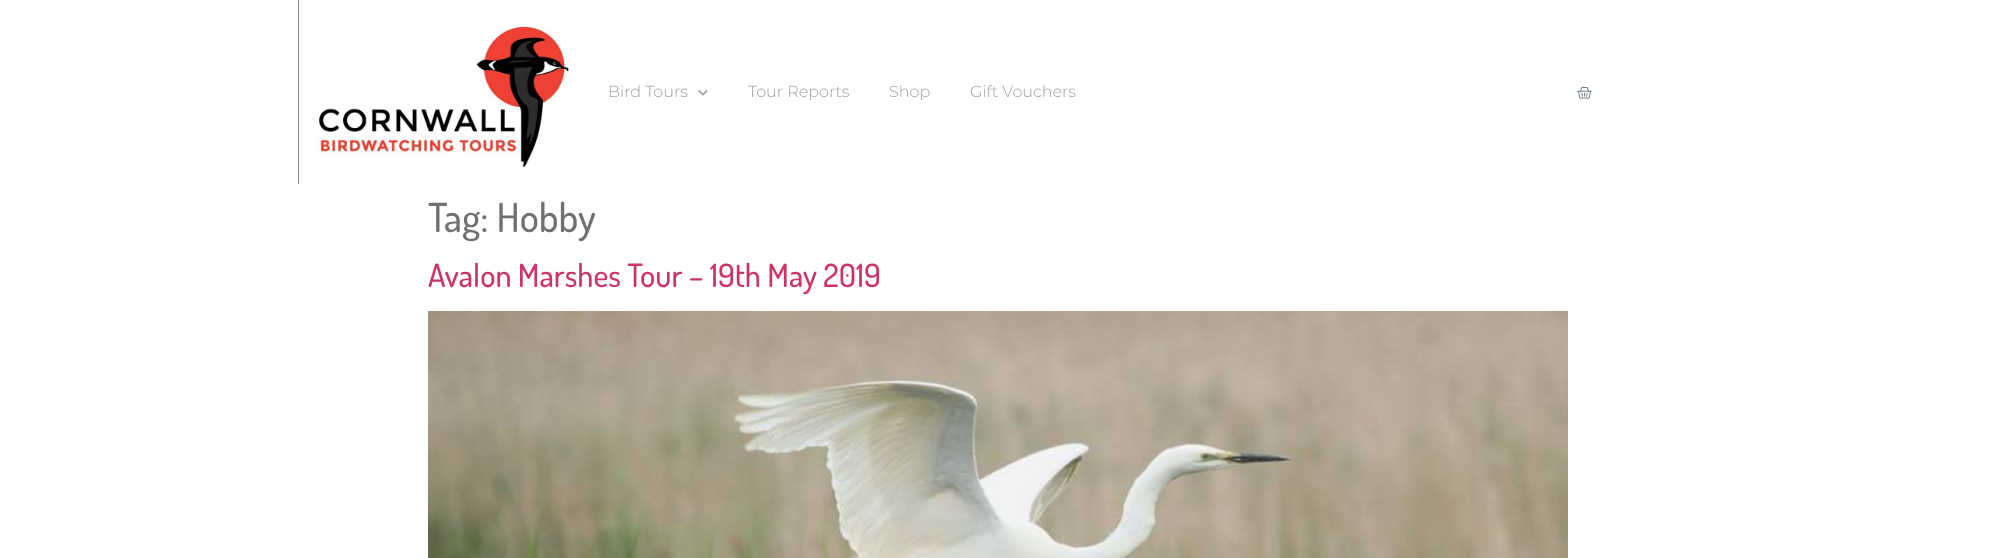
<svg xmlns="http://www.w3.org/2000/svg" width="1996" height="558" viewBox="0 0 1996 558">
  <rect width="100%" height="100%" fill="rgb(255,255,255)"/>
  <image x="298" y="0" width="271" height="184" href="pic1.png"/>
  <text x="608" y="97" font-family="Montserrat" font-size="16" font-weight="300" fill="rgb(161,161,161)">Bird Tours</text>
  <image x="698" y="90" width="10" height="6" href="pic2.png"/>
  <g font-family="Montserrat" font-size="16" font-weight="300" fill="rgb(161,161,161)">
    <text x="748" y="97">Tour Reports</text>
    <text x="889" y="97">Shop</text>
    <text x="970" y="97">Gift Vouchers</text>
  </g>
  <image x="1577" y="87" width="15" height="12" href="pic3.png"/>
  <text x="428" y="232" font-family="Dosis" font-size="40" font-weight="500" fill="rgb(113,113,113)">Tag: Hobby</text>
  <text x="428" y="287" font-family="Dosis" font-size="32" font-weight="500" fill="rgb(204,51,102)">Avalon Marshes Tour – 19th May 2019</text>
  <image x="428" y="311" width="1140" height="247" href="pic4.png"/>
</svg>
